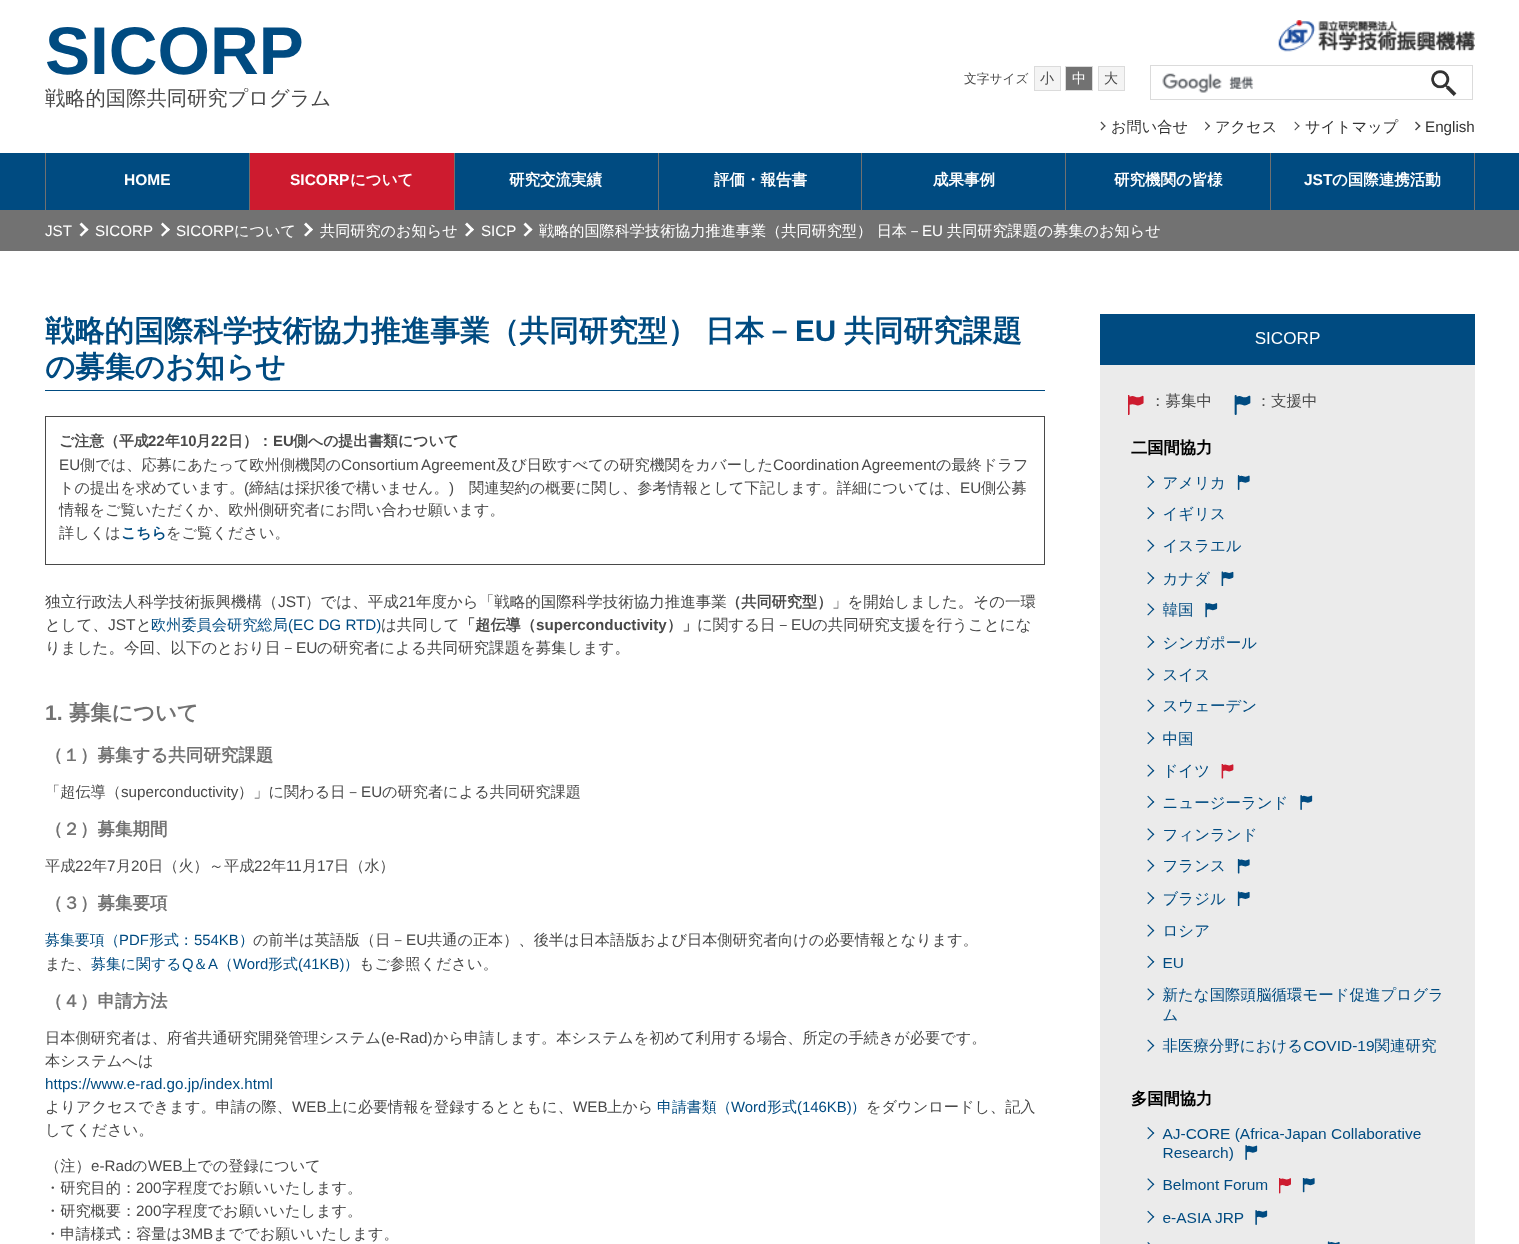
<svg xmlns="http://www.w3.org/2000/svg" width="1519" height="1244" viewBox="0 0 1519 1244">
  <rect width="100%" height="100%" fill="rgb(255,255,255)"/>
  <text x="45" y="74" font-family="Liberation Sans" font-size="67.5" font-weight="bold" fill="rgb(0,75,129)">SICORP</text>
  <text x="45" y="105" font-family="WenQuanYi Zen Hei" font-size="20.3" font-weight="500" fill="rgb(73,73,73)">戦略的国際共同研究プログラム</text>
  <image x="1278" y="20" width="197" height="32" href="pic1.png"/>
  <text x="964" y="83" font-family="WenQuanYi Zen Hei" font-size="12.75" font-weight="500" fill="rgb(73,73,73)">文字サイズ</text>
  <rect x="1034.5" y="66.5" width="26" height="24" fill="rgb(244,244,244)" stroke="rgb(219,219,219)"/>
  <text x="1040" y="83" font-family="WenQuanYi Zen Hei" font-size="14" font-weight="500" fill="rgb(73,73,73)">小</text>
  <rect x="1065.5" y="66.5" width="27" height="24" fill="rgb(114,114,114)" stroke="rgb(219,219,219)"/>
  <text x="1072" y="83" font-family="WenQuanYi Zen Hei" font-size="14" font-weight="500" fill="rgb(255,255,255)">中</text>
  <rect x="1098.5" y="66.5" width="26" height="24" fill="rgb(244,244,244)" stroke="rgb(219,219,219)"/>
  <text x="1104" y="83" font-family="WenQuanYi Zen Hei" font-size="14" font-weight="500" fill="rgb(73,73,73)">大</text>
  <image x="1162" y="73" width="92" height="20" href="pic2.png"/>
  <rect x="1150.5" y="65.5" width="322" height="34" fill="none" stroke="rgb(219,219,219)"/>
  <image x="1431" y="70" width="26" height="27" href="pic3.png"/>
  <path d="M1101.5 121.5L1105.5 126L1105 127L1100.5 122.5Z" fill="rgb(73,73,73)"/>
  <path d="M1105 125L1105.5 126L1101.5 130.5L1100.5 129.5Z" fill="rgb(73,73,73)"/>
  <text x="1111" y="132" font-family="WenQuanYi Zen Hei" font-size="15.2" font-weight="500" fill="rgb(51,51,51)">お問い合せ</text>
  <path d="M1205.5 121.5L1210 126L1209 127L1205 122.5Z" fill="rgb(73,73,73)"/>
  <path d="M1209 125L1210 126L1205.5 130.5L1205 129.5Z" fill="rgb(73,73,73)"/>
  <text x="1215" y="132" font-family="WenQuanYi Zen Hei" font-size="15.2" font-weight="500" fill="rgb(51,51,51)">アクセス</text>
  <path d="M1295 121.5L1299.5 126L1299 127L1294.5 122.5Z" fill="rgb(73,73,73)"/>
  <path d="M1299 125L1299.5 126L1295 130.5L1294.5 129.5Z" fill="rgb(73,73,73)"/>
  <text x="1305" y="132" font-family="WenQuanYi Zen Hei" font-size="15.2" font-weight="500" fill="rgb(51,51,51)">サイトマップ</text>
  <path d="M1416 121.5L1420.5 126L1419.5 127L1415 122.5Z" fill="rgb(73,73,73)"/>
  <path d="M1419.5 125L1420.5 126L1416 130.5L1415 129.5Z" fill="rgb(73,73,73)"/>
  <text x="1425" y="132" font-family="Liberation Sans" font-size="15.2" fill="rgb(51,51,51)">English</text>
  <rect x="0" y="153" width="1519" height="57" fill="rgb(0,75,129)"/>
  <rect x="249" y="153" width="1" height="57" fill="rgb(112,112,112)"/>
  <rect x="45" y="153" width="1" height="57" fill="rgb(112,112,112)"/>
  <text x="124" y="185" font-family="Liberation Sans" font-size="15.5" font-weight="bold" fill="rgb(255,255,255)">HOME</text>
  <rect x="454" y="153" width="1" height="57" fill="rgb(112,112,112)"/>
  <rect x="250" y="153" width="204" height="57" fill="rgb(205,27,47)"/>
  <text x="290" y="185" font-family="Liberation Sans" font-size="15.5" font-weight="bold" fill="rgb(255,255,255)">SICORP</text>
  <text x="350" y="185" font-family="WenQuanYi Zen Hei" font-size="15.5" font-weight="bold" fill="rgb(255,255,255)">について</text>
  <rect x="658" y="153" width="1" height="57" fill="rgb(112,112,112)"/>
  <text x="509" y="185" font-family="WenQuanYi Zen Hei" font-size="15.5" font-weight="bold" fill="rgb(255,255,255)">研究交流実績</text>
  <rect x="861" y="153" width="1" height="57" fill="rgb(112,112,112)"/>
  <text x="714" y="185" font-family="WenQuanYi Zen Hei" font-size="15.5" font-weight="bold" fill="rgb(255,255,255)">評価・報告書</text>
  <rect x="1065" y="153" width="1" height="57" fill="rgb(112,112,112)"/>
  <text x="933" y="185" font-family="WenQuanYi Zen Hei" font-size="15.5" font-weight="bold" fill="rgb(255,255,255)">成果事例</text>
  <rect x="1270" y="153" width="1" height="57" fill="rgb(112,112,112)"/>
  <text x="1114" y="185" font-family="WenQuanYi Zen Hei" font-size="15.5" font-weight="bold" fill="rgb(255,255,255)">研究機関の皆様</text>
  <rect x="1474" y="153" width="1" height="57" fill="rgb(112,112,112)"/>
  <text x="1304" y="185" font-family="Liberation Sans" font-size="15.5" font-weight="bold" fill="rgb(255,255,255)">JST</text>
  <text x="1332" y="185" font-family="WenQuanYi Zen Hei" font-size="15.5" font-weight="bold" fill="rgb(255,255,255)">の国際連携活動</text>
  <rect x="0" y="210" width="1519" height="41" fill="rgb(114,114,114)"/>
  <text x="45" y="236" font-family="Liberation Sans" font-size="15.15" fill="rgb(255,255,255)">JST</text>
  <path d="M81.5 222.5L88.5 229.5L86.5 231.5L79.5 224.5Z" fill="rgb(255,255,255)"/>
  <path d="M86.5 228L88.5 229.5L81.5 236.5L79.5 235Z" fill="rgb(255,255,255)"/>
  <text x="95" y="236" font-family="Liberation Sans" font-size="15.15" fill="rgb(255,255,255)">SICORP</text>
  <path d="M162.5 222.5L170 229.5L168 231.5L161 224.5Z" fill="rgb(255,255,255)"/>
  <path d="M168 228L170 229.5L162.5 236.5L161 235Z" fill="rgb(255,255,255)"/>
  <text x="176" y="236" font-family="Liberation Sans" font-size="15.15" fill="rgb(255,255,255)">SICORP</text>
  <text x="234" y="236" font-family="WenQuanYi Zen Hei" font-size="15.15" font-weight="500" fill="rgb(255,255,255)">について</text>
  <path d="M306 222.5L313 229.5L311 231.5L304 224.5Z" fill="rgb(255,255,255)"/>
  <path d="M311 228L313 229.5L306 236.5L304 235Z" fill="rgb(255,255,255)"/>
  <text x="320" y="236" font-family="WenQuanYi Zen Hei" font-size="15.15" font-weight="500" fill="rgb(255,255,255)">共同研究のお知らせ</text>
  <path d="M467 222.5L474 229.5L472 231.5L465 224.5Z" fill="rgb(255,255,255)"/>
  <path d="M472 228L474 229.5L467 236.5L465 235Z" fill="rgb(255,255,255)"/>
  <text x="481" y="236" font-family="Liberation Sans" font-size="15.15" fill="rgb(255,255,255)">SICP</text>
  <path d="M525.5 222.5L532.5 229.5L530.5 231.5L523.5 224.5Z" fill="rgb(255,255,255)"/>
  <path d="M530.5 228L532.5 229.5L525.5 236.5L523.5 235Z" fill="rgb(255,255,255)"/>
  <text x="539" y="236" font-family="WenQuanYi Zen Hei" font-size="15.15" font-weight="500" fill="rgb(255,255,255)">戦略的国際科学技術協力推進事業（共同研究型） 日本－</text>
  <text x="922" y="236" font-family="Liberation Sans" font-size="15.15" fill="rgb(255,255,255)">EU</text>
  <text x="947" y="236" font-family="WenQuanYi Zen Hei" font-size="15.15" font-weight="500" fill="rgb(255,255,255)">共同研究課題の募集のお知らせ</text>
  <rect x="45" y="390" width="1000" height="1" fill="rgb(0,75,129)"/>
  <text x="45" y="341" word-spacing="-1" font-family="WenQuanYi Zen Hei" font-size="29.65" font-weight="bold" fill="rgb(0,75,129)">戦略的国際科学技術協力推進事業（共同研究型） 日本－</text>
  <text x="795" y="341" font-family="Liberation Sans" font-size="29.65" font-weight="bold" fill="rgb(0,75,129)">EU</text>
  <g font-family="WenQuanYi Zen Hei" font-size="29.65" font-weight="bold" fill="rgb(0,75,129)">
    <text x="844" y="341">共同研究課題</text>
    <text x="45" y="377">の募集のお知らせ</text>
  </g>
  <rect x="45.5" y="416.5" width="999" height="148" fill="none" stroke="rgb(73,73,73)"/>
  <text x="59" y="446" font-family="WenQuanYi Zen Hei" font-size="14.9" font-weight="bold" fill="rgb(73,73,73)">ご注意（平成</text>
  <text x="148" y="446" font-family="Liberation Sans" font-size="14.9" font-weight="bold" fill="rgb(73,73,73)">22</text>
  <text x="165" y="446" font-family="WenQuanYi Zen Hei" font-size="14.9" font-weight="bold" fill="rgb(73,73,73)">年</text>
  <text x="180" y="446" font-family="Liberation Sans" font-size="14.9" font-weight="bold" fill="rgb(73,73,73)">10</text>
  <text x="196" y="446" font-family="WenQuanYi Zen Hei" font-size="14.9" font-weight="bold" fill="rgb(73,73,73)">月</text>
  <text x="211" y="446" font-family="Liberation Sans" font-size="14.9" font-weight="bold" fill="rgb(73,73,73)">22</text>
  <text x="228" y="446" font-family="WenQuanYi Zen Hei" font-size="14.9" font-weight="bold" fill="rgb(73,73,73)">日）：</text>
  <text x="273" y="446" font-family="Liberation Sans" font-size="14.9" font-weight="bold" fill="rgb(73,73,73)">EU</text>
  <text x="293" y="446" font-family="WenQuanYi Zen Hei" font-size="14.9" font-weight="bold" fill="rgb(73,73,73)">側への提出書類について</text>
  <text x="59" y="470" font-family="Liberation Sans" font-size="15.2" fill="rgb(73,73,73)">EU</text>
  <text x="80" y="470" font-family="WenQuanYi Zen Hei" font-size="15.2" font-weight="500" fill="rgb(73,73,73)">側では、応募にあたって欧州側機関の</text>
  <text x="341" y="470" word-spacing="-1" font-family="Liberation Sans" font-size="15.2" fill="rgb(73,73,73)">Consortium Agreement</text>
  <text x="496" y="470" font-family="WenQuanYi Zen Hei" font-size="15.2" font-weight="500" fill="rgb(73,73,73)">及び日欧すべての研究機関をカバーした</text>
  <text x="773" y="470" word-spacing="-1" font-family="Liberation Sans" font-size="15.2" fill="rgb(73,73,73)">Coordination Agreement</text>
  <g font-family="WenQuanYi Zen Hei" font-size="15.2" font-weight="500" fill="rgb(73,73,73)">
    <text x="936" y="470">の最終ドラフ</text>
    <text x="59" y="493">トの提出を求めています。</text>
  </g>
  <text x="244" y="493" font-family="Liberation Sans" font-size="15.2" fill="rgb(73,73,73)">(</text>
  <text x="249" y="493" font-family="WenQuanYi Zen Hei" font-size="15.2" font-weight="500" fill="rgb(73,73,73)">締結は採択後で構いません。</text>
  <text x="449" y="493" font-family="Liberation Sans" font-size="15.2" fill="rgb(73,73,73)">)</text>
  <text x="469" y="493" font-family="WenQuanYi Zen Hei" font-size="15.2" font-weight="500" fill="rgb(73,73,73)">関連契約の概要に関し、参考情報として下記します。詳細については、</text>
  <text x="960" y="493" font-family="Liberation Sans" font-size="15.2" fill="rgb(73,73,73)">EU</text>
  <g font-family="WenQuanYi Zen Hei" font-size="15.2" font-weight="500" fill="rgb(73,73,73)">
    <text x="981" y="493">側公募</text>
    <text>
      <tspan x="59" y="515">情報をご覧いただくか、欧州側研究者にお問い合わせ願います。</tspan>
      <tspan x="59" y="538">詳しくは</tspan>
    </text>
  </g>
  <text x="121" y="538" font-family="WenQuanYi Zen Hei" font-size="14.9" font-weight="bold" fill="rgb(0,75,129)">こちら</text>
  <text x="166" y="538" font-family="WenQuanYi Zen Hei" font-size="15.2" font-weight="500" fill="rgb(73,73,73)">をご覧ください。</text>
  <text x="45" y="607" font-family="WenQuanYi Zen Hei" font-size="15.5" font-weight="500" fill="rgb(73,73,73)">独立行政法人科学技術振興機構（</text>
  <text x="278" y="607" font-family="Liberation Sans" font-size="15.5" fill="rgb(73,73,73)">JST</text>
  <text x="305" y="607" font-family="WenQuanYi Zen Hei" font-size="15.5" font-weight="500" fill="rgb(73,73,73)">）では、平成</text>
  <text x="399" y="607" font-family="Liberation Sans" font-size="15.5" fill="rgb(73,73,73)">21</text>
  <text x="416" y="607" font-family="WenQuanYi Zen Hei" font-size="15.5" font-weight="500" fill="rgb(73,73,73)">年度から「戦略的国際科学技術協力推進事業</text>
  <text x="726" y="607" font-family="WenQuanYi Zen Hei" font-size="15.2" font-weight="bold" fill="rgb(73,73,73)">（共同研究型）</text>
  <g font-family="WenQuanYi Zen Hei" font-size="15.5" font-weight="500" fill="rgb(73,73,73)">
    <text x="832" y="607">」を開始しました。その一環</text>
    <text x="45" y="630">として、</text>
  </g>
  <text x="108" y="630" font-family="Liberation Sans" font-size="15.5" fill="rgb(73,73,73)">JST</text>
  <text x="136" y="630" font-family="WenQuanYi Zen Hei" font-size="15.5" font-weight="500" fill="rgb(73,73,73)">と</text>
  <text x="151" y="630" font-family="WenQuanYi Zen Hei" font-size="15.2" font-weight="500" fill="rgb(0,75,129)">欧州委員会研究総局</text>
  <text x="288" y="630" font-family="Liberation Sans" font-size="15.2" fill="rgb(0,75,129)">(EC DG RTD)</text>
  <text x="381" y="630" font-family="WenQuanYi Zen Hei" font-size="15.5" font-weight="500" fill="rgb(73,73,73)">は共同して</text>
  <text x="460" y="630" font-family="WenQuanYi Zen Hei" font-size="15.2" font-weight="bold" fill="rgb(73,73,73)">「超伝導（</text>
  <text x="536" y="630" font-family="Liberation Sans" font-size="15.2" font-weight="bold" fill="rgb(73,73,73)">superconductivity</text>
  <text x="667" y="630" font-family="WenQuanYi Zen Hei" font-size="15.2" font-weight="bold" fill="rgb(73,73,73)">）」</text>
  <text x="697" y="630" font-family="WenQuanYi Zen Hei" font-size="15.5" font-weight="500" fill="rgb(73,73,73)">に関する日－</text>
  <text x="791" y="630" font-family="Liberation Sans" font-size="15.5" fill="rgb(73,73,73)">EU</text>
  <g font-family="WenQuanYi Zen Hei" font-size="15.5" font-weight="500" fill="rgb(73,73,73)">
    <text x="812" y="630">の共同研究支援を行うことにな</text>
    <text x="45" y="653">りました。今回、以下のとおり日－</text>
  </g>
  <text x="296" y="653" font-family="Liberation Sans" font-size="15.5" fill="rgb(73,73,73)">EU</text>
  <text x="317" y="653" font-family="WenQuanYi Zen Hei" font-size="15.5" font-weight="500" fill="rgb(73,73,73)">の研究者による共同研究課題を募集します。</text>
  <text x="45" y="720" font-family="Liberation Sans" font-size="21.25" font-weight="bold" fill="rgb(114,114,114)">1.</text>
  <text x="69" y="720" font-family="WenQuanYi Zen Hei" font-size="21.25" font-weight="bold" fill="rgb(114,114,114)">募集について</text>
  <text x="45" y="761" font-family="WenQuanYi Zen Hei" font-size="17.5" font-weight="bold" fill="rgb(114,114,114)">（１）募集する共同研究課題</text>
  <text x="45" y="797" font-family="WenQuanYi Zen Hei" font-size="15.2" font-weight="500" fill="rgb(73,73,73)">「超伝導（</text>
  <text x="121" y="797" font-family="Liberation Sans" font-size="15.2" fill="rgb(73,73,73)">superconductivity</text>
  <text x="238" y="797" font-family="WenQuanYi Zen Hei" font-size="15.2" font-weight="500" fill="rgb(73,73,73)">）」に関わる日－</text>
  <text x="361" y="797" font-family="Liberation Sans" font-size="15.2" fill="rgb(73,73,73)">EU</text>
  <text x="382" y="797" font-family="WenQuanYi Zen Hei" font-size="15.2" font-weight="500" fill="rgb(73,73,73)">の研究者による共同研究課題</text>
  <text x="45" y="835" font-family="WenQuanYi Zen Hei" font-size="17.5" font-weight="bold" fill="rgb(114,114,114)">（２）募集期間</text>
  <text x="45" y="871" font-family="WenQuanYi Zen Hei" font-size="15.2" font-weight="500" fill="rgb(73,73,73)">平成</text>
  <text x="75" y="871" font-family="Liberation Sans" font-size="15.2" fill="rgb(73,73,73)">22</text>
  <text x="92" y="871" font-family="WenQuanYi Zen Hei" font-size="15.2" font-weight="500" fill="rgb(73,73,73)">年</text>
  <text x="107" y="871" font-family="Liberation Sans" font-size="15.2" fill="rgb(73,73,73)">7</text>
  <text x="116" y="871" font-family="WenQuanYi Zen Hei" font-size="15.2" font-weight="500" fill="rgb(73,73,73)">月</text>
  <text x="131" y="871" font-family="Liberation Sans" font-size="15.2" fill="rgb(73,73,73)">20</text>
  <text x="148" y="871" font-family="WenQuanYi Zen Hei" font-size="15.2" font-weight="500" fill="rgb(73,73,73)">日（火）～平成</text>
  <text x="254" y="871" font-family="Liberation Sans" font-size="15.2" fill="rgb(73,73,73)">22</text>
  <text x="271" y="871" font-family="WenQuanYi Zen Hei" font-size="15.2" font-weight="500" fill="rgb(73,73,73)">年</text>
  <text x="286" y="871" font-family="Liberation Sans" font-size="15.2" fill="rgb(73,73,73)">11</text>
  <text x="302" y="871" font-family="WenQuanYi Zen Hei" font-size="15.2" font-weight="500" fill="rgb(73,73,73)">月</text>
  <text x="317" y="871" font-family="Liberation Sans" font-size="15.2" fill="rgb(73,73,73)">17</text>
  <text x="334" y="871" font-family="WenQuanYi Zen Hei" font-size="15.2" font-weight="500" fill="rgb(73,73,73)">日（水）</text>
  <text x="45" y="909" font-family="WenQuanYi Zen Hei" font-size="17.5" font-weight="bold" fill="rgb(114,114,114)">（３）募集要項</text>
  <text x="45" y="945" font-family="WenQuanYi Zen Hei" font-size="14.9" font-weight="500" fill="rgb(0,75,129)">募集要項（</text>
  <text x="119" y="945" font-family="Liberation Sans" font-size="14.9" fill="rgb(0,75,129)">PDF</text>
  <text x="149" y="945" font-family="WenQuanYi Zen Hei" font-size="14.9" font-weight="500" fill="rgb(0,75,129)">形式：</text>
  <text x="194" y="945" font-family="Liberation Sans" font-size="14.9" fill="rgb(0,75,129)">554KB</text>
  <text x="239" y="945" font-family="WenQuanYi Zen Hei" font-size="14.9" font-weight="500" fill="rgb(0,75,129)">）</text>
  <text x="253" y="945" font-family="WenQuanYi Zen Hei" font-size="15.2" font-weight="500" fill="rgb(73,73,73)">の前半は英語版（日－</text>
  <text x="406" y="945" font-family="Liberation Sans" font-size="15.2" fill="rgb(73,73,73)">EU</text>
  <g font-family="WenQuanYi Zen Hei" font-size="15.2" font-weight="500" fill="rgb(73,73,73)">
    <text x="427" y="945">共通の正本）、後半は日本語版および日本側研究者向けの必要情報となります。</text>
    <text x="45" y="969">また、</text>
  </g>
  <text x="91" y="969" font-family="WenQuanYi Zen Hei" font-size="14.9" font-weight="500" fill="rgb(0,75,129)">募集に関する</text>
  <text x="182" y="969" font-family="Liberation Sans" font-size="14.9" fill="rgb(0,75,129)">Q</text>
  <text x="193" y="969" font-family="WenQuanYi Zen Hei" font-size="14.9" font-weight="500" fill="rgb(0,75,129)">＆</text>
  <text x="208" y="969" font-family="Liberation Sans" font-size="14.9" fill="rgb(0,75,129)">A</text>
  <text x="218" y="969" font-family="WenQuanYi Zen Hei" font-size="14.9" font-weight="500" fill="rgb(0,75,129)">（</text>
  <text x="233" y="969" font-family="Liberation Sans" font-size="14.9" fill="rgb(0,75,129)">Word</text>
  <text x="268" y="969" font-family="WenQuanYi Zen Hei" font-size="14.9" font-weight="500" fill="rgb(0,75,129)">形式</text>
  <text x="298" y="969" font-family="Liberation Sans" font-size="14.9" fill="rgb(0,75,129)">(41KB)</text>
  <text x="344" y="969" font-family="WenQuanYi Zen Hei" font-size="14.9" font-weight="500" fill="rgb(0,75,129)">）</text>
  <text x="359" y="969" font-family="WenQuanYi Zen Hei" font-size="15.2" font-weight="500" fill="rgb(73,73,73)">もご参照ください。</text>
  <text x="45" y="1007" font-family="WenQuanYi Zen Hei" font-size="17.5" font-weight="bold" fill="rgb(114,114,114)">（４）申請方法</text>
  <text x="45" y="1043" font-family="WenQuanYi Zen Hei" font-size="15.2" font-weight="500" fill="rgb(73,73,73)">日本側研究者は、府省共通研究開発管理システム</text>
  <text x="381" y="1043" font-family="Liberation Sans" font-size="15.2" fill="rgb(73,73,73)">(e-Rad)</text>
  <g font-family="WenQuanYi Zen Hei" font-size="15.2" font-weight="500" fill="rgb(73,73,73)">
    <text x="433" y="1043">から申請します。本システムを初めて利用する場合、所定の手続きが必要です。</text>
    <text x="45" y="1066">本システムへは</text>
  </g>
  <text x="45" y="1089" font-family="Liberation Sans" font-size="15.2" fill="rgb(0,75,129)">https://www.e-rad.go.jp/index.html</text>
  <text x="45" y="1112" font-family="WenQuanYi Zen Hei" font-size="15.2" font-weight="500" fill="rgb(73,73,73)">よりアクセスできます。申請の際、</text>
  <text x="292" y="1112" font-family="Liberation Sans" font-size="15.2" fill="rgb(73,73,73)">WEB</text>
  <text x="327" y="1112" font-family="WenQuanYi Zen Hei" font-size="15.2" font-weight="500" fill="rgb(73,73,73)">上に必要情報を登録するとともに、</text>
  <text x="573" y="1112" font-family="Liberation Sans" font-size="15.2" fill="rgb(73,73,73)">WEB</text>
  <text x="607" y="1112" font-family="WenQuanYi Zen Hei" font-size="15.2" font-weight="500" fill="rgb(73,73,73)">上から</text>
  <text x="657" y="1112" font-family="WenQuanYi Zen Hei" font-size="14.9" font-weight="500" fill="rgb(0,75,129)">申請書類（</text>
  <text x="731" y="1112" font-family="Liberation Sans" font-size="14.9" fill="rgb(0,75,129)">Word</text>
  <text x="767" y="1112" font-family="WenQuanYi Zen Hei" font-size="14.9" font-weight="500" fill="rgb(0,75,129)">形式</text>
  <text x="797" y="1112" font-family="Liberation Sans" font-size="14.9" fill="rgb(0,75,129)">(146KB)</text>
  <text x="851" y="1112" font-family="WenQuanYi Zen Hei" font-size="14.9" font-weight="500" fill="rgb(0,75,129)">）</text>
  <g font-family="WenQuanYi Zen Hei" font-size="15.2" font-weight="500" fill="rgb(73,73,73)">
    <text x="866" y="1112">をダウンロードし、記入</text>
    <text x="45" y="1135">してください。</text>
    <text x="45" y="1171">（注）</text>
  </g>
  <text x="91" y="1171" font-family="Liberation Sans" font-size="15.2" fill="rgb(73,73,73)">e-Rad</text>
  <text x="132" y="1171" font-family="WenQuanYi Zen Hei" font-size="15.2" font-weight="500" fill="rgb(73,73,73)">の</text>
  <text x="148" y="1171" font-family="Liberation Sans" font-size="15.2" fill="rgb(73,73,73)">WEB</text>
  <g font-family="WenQuanYi Zen Hei" font-size="15.2" font-weight="500" fill="rgb(73,73,73)">
    <text x="182" y="1171">上での登録について</text>
    <text x="45" y="1193">・研究目的：</text>
  </g>
  <text x="136" y="1193" font-family="Liberation Sans" font-size="15.2" fill="rgb(73,73,73)">200</text>
  <g font-family="WenQuanYi Zen Hei" font-size="15.2" font-weight="500" fill="rgb(73,73,73)">
    <text x="162" y="1193">字程度でお願いいたします。</text>
    <text x="45" y="1216">・研究概要：</text>
  </g>
  <text x="136" y="1216" font-family="Liberation Sans" font-size="15.2" fill="rgb(73,73,73)">200</text>
  <g font-family="WenQuanYi Zen Hei" font-size="15.2" font-weight="500" fill="rgb(73,73,73)">
    <text x="162" y="1216">字程度でお願いいたします。</text>
    <text x="45" y="1239">・申請様式：容量は</text>
  </g>
  <text x="182" y="1239" font-family="Liberation Sans" font-size="15.2" fill="rgb(73,73,73)">3MB</text>
  <text x="213" y="1239" font-family="WenQuanYi Zen Hei" font-size="15.2" font-weight="500" fill="rgb(73,73,73)">まででお願いいたします。</text>
  <image x="1100" y="314" width="375" height="930" href="pic4.png"/>
</svg>
